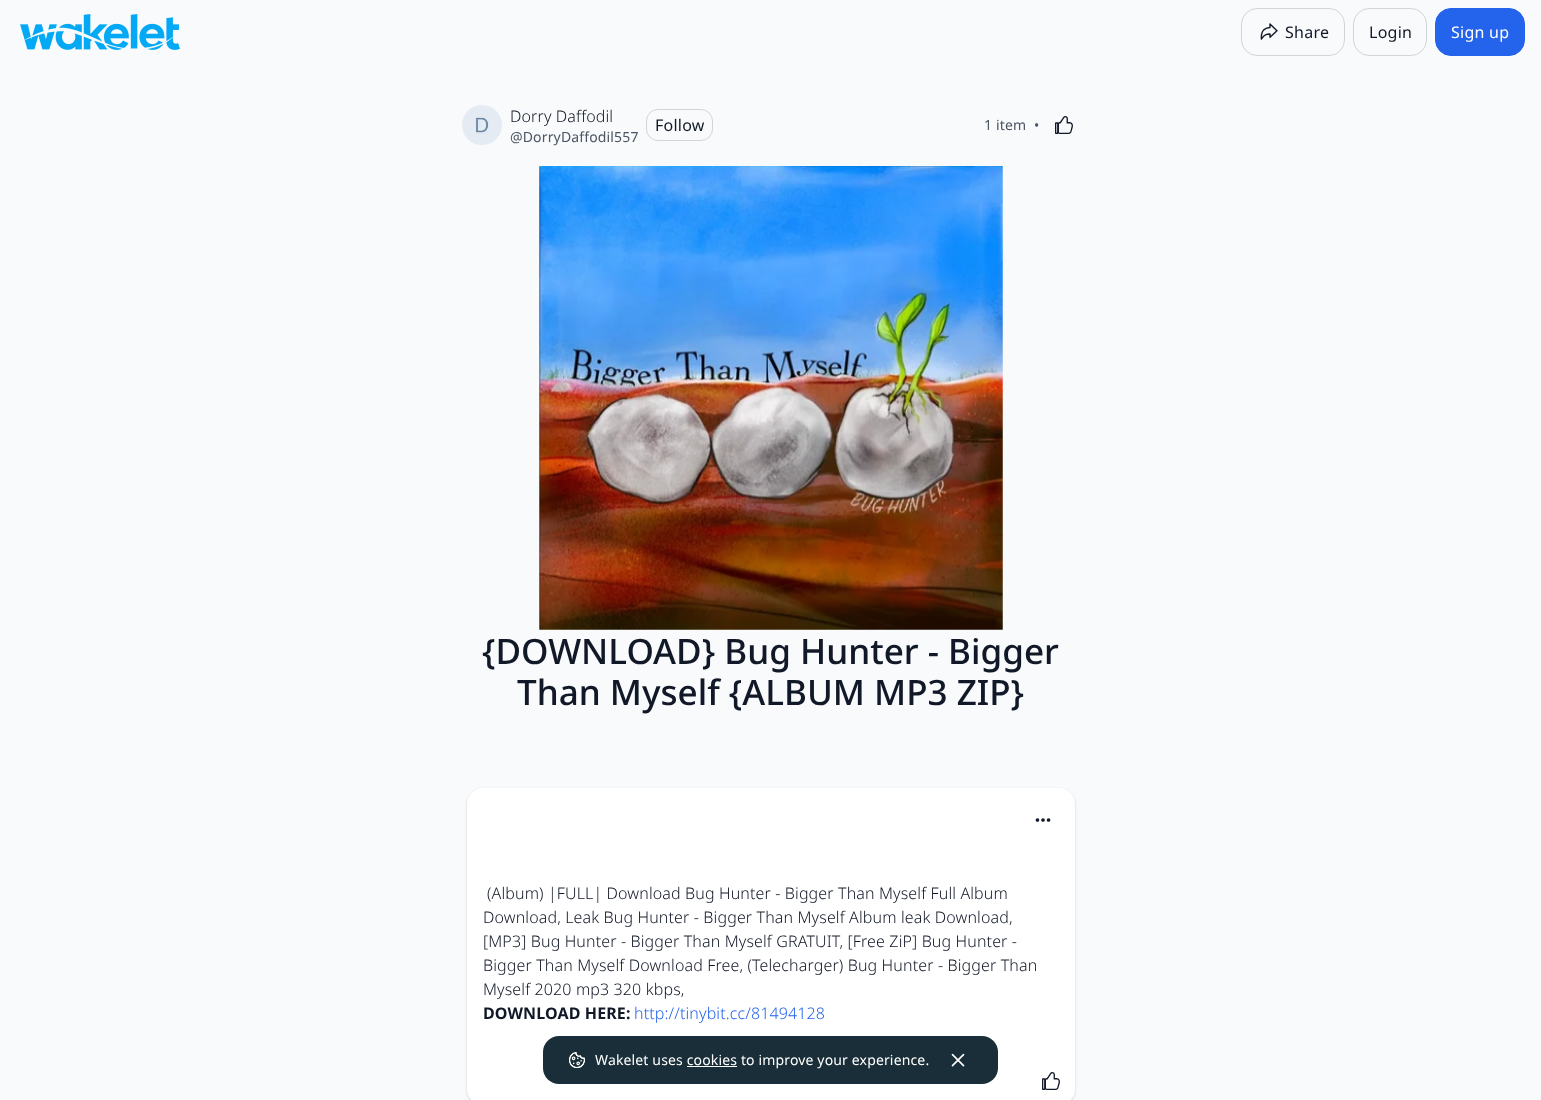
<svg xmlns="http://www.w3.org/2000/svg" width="1541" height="1100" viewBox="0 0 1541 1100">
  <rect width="100%" height="100%" fill="rgb(249,250,251)"/>
  <image x="20" y="14" width="160" height="36" href="pic1.png"/>
  <rect x="1241.5" y="8.5" width="103" height="47" rx="15.5" fill="none" stroke="rgb(209,213,219)"/>
  <image x="1260" y="23" width="18" height="17" href="pic2.png"/>
  <text x="1285" y="38" font-family="Noto Sans" font-size="16" letter-spacing="0.25" fill="rgb(17,24,39)">Share</text>
  <rect x="1353.5" y="8.5" width="73" height="47" rx="15.5" fill="none" stroke="rgb(209,213,219)"/>
  <text x="1369" y="38" font-family="Noto Sans" font-size="16" letter-spacing="0.25" fill="rgb(17,24,39)">Login</text>
  <rect x="1435.5" y="8.5" width="89" height="47" rx="15.5" fill="rgb(36,99,235)" stroke="rgb(36,99,235)"/>
  <text x="1451" y="38" font-family="Noto Sans" font-size="16" letter-spacing="0.25" fill="rgb(255,255,255)">Sign up</text>
  <image x="462" y="105" width="40" height="40" href="pic3.png"/>
  <text x="510" y="122" font-family="Noto Sans" font-size="16" font-weight="300" letter-spacing="0.13" fill="rgb(17,24,39)">Dorry Daffodil</text>
  <text x="510" y="142" font-family="Noto Sans" font-size="14" letter-spacing="0.15" fill="rgb(75,85,99)">@DorryDaffodil557</text>
  <rect x="646.5" y="109.5" width="66" height="31" rx="11.5" fill="none" stroke="rgb(209,213,219)"/>
  <text x="655" y="131" font-family="Noto Sans" font-size="16" letter-spacing="0.25" fill="rgb(17,24,39)">Follow</text>
  <g font-family="Noto Sans" font-size="14" letter-spacing="0.15" fill="rgb(75,85,99)">
    <text x="984" y="130">1 item</text>
    <text x="1034" y="130">•</text>
  </g>
  <image x="1055" y="116" width="18" height="18" href="pic4.png"/>
  <image x="539" y="166" width="464" height="464" href="pic5.png"/>
  <g font-family="Noto Sans" font-size="35" font-weight="500" fill="rgb(17,24,39)">
    <text x="482" y="664">{DOWNLOAD} Bug Hunter - Bigger</text>
    <text x="517" y="705">Than Myself {ALBUM MP3 ZIP}</text>
  </g>
  <rect x="467" y="789" width="608" height="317" rx="16" fill="rgba(0,24,61,0.06)" filter="blur(1px)"/>
  <rect x="467" y="789" width="608" height="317" rx="16" fill="rgba(0,24,61,0.1)" filter="blur(1.5px)"/>
  <rect x="467" y="788" width="608" height="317" rx="16" fill="rgb(255,255,255)"/>
  <image x="1035" y="818" width="16" height="4" href="pic6.png"/>
  <g font-family="Noto Sans" font-size="16" font-weight="300" letter-spacing="0.13" fill="rgb(17,24,39)">
    <text x="487" y="899">(Album) |FULL| Download Bug Hunter - Bigger Than Myself Full Album</text>
    <text>
      <tspan x="483" y="923">Download, Leak Bug Hunter - Bigger Than Myself Album leak Download,</tspan>
      <tspan x="483" y="947">[MP3] Bug Hunter - Bigger Than Myself GRATUIT, [Free ZiP] Bug Hunter -</tspan>
      <tspan x="483" y="971">Bigger Than Myself Download Free, (Telecharger) Bug Hunter - Bigger Than</tspan>
      <tspan x="483" y="995">Myself 2020 mp3 320 kbps,</tspan>
    </text>
  </g>
  <text x="483" y="1019" font-family="Noto Sans" font-size="16" font-weight="bold" letter-spacing="0.13" fill="rgb(17,24,39)">DOWNLOAD HERE:</text>
  <text x="634" y="1019" font-family="Noto Sans" font-size="16" font-weight="300" letter-spacing="0.13" fill="rgb(36,99,235)">http://tinybit.cc/81494128</text>
  <image x="1042" y="1072" width="18" height="18" href="pic7.png"/>
  <rect x="543" y="1036" width="455" height="48" rx="16" fill="rgb(25,46,56)"/>
  <image x="569" y="1052" width="16" height="16" href="pic8.png"/>
  <text x="595" y="1065" font-family="Noto Sans" font-size="14" letter-spacing="0.15" fill="rgb(255,255,255)">Wakelet uses cookies to improve your experience.</text>
  <rect x="687" y="1066" width="50" height="1" fill="rgb(255,255,255)"/>
  <image x="951" y="1053" width="14" height="14" href="pic9.png"/>
</svg>
